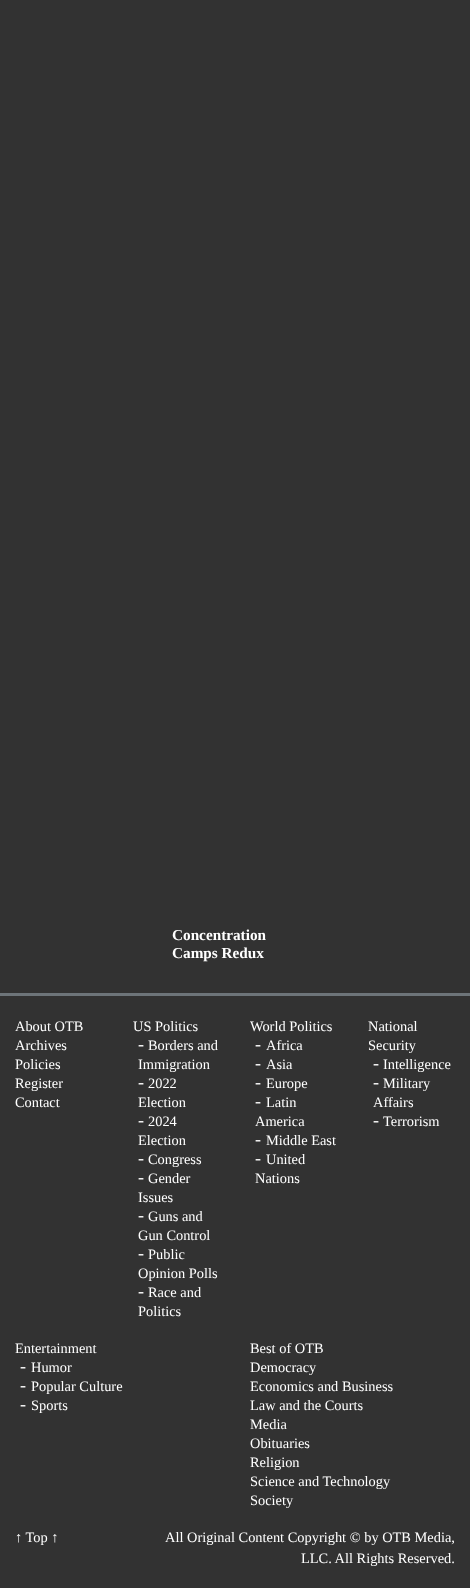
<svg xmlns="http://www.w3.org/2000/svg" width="470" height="1588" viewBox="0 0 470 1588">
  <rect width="100%" height="100%" fill="rgb(50,50,50)"/>
  <g font-family="Liberation Serif" font-size="15.25" font-weight="bold" fill="rgb(255,255,255)">
    <text>
      <tspan x="172" y="940">Concentration</tspan>
      <tspan x="172" y="958">Camps Redux</tspan>
    </text>
  </g>
  <rect x="0" y="993" width="470" height="3" fill="rgb(109,116,121)"/>
  <g font-family="Liberation Serif" font-size="14.4" fill="rgb(255,255,255)">
    <text>
      <tspan x="15" y="1031">About OTB</tspan>
      <tspan x="15" y="1050">Archives</tspan>
      <tspan x="15" y="1069">Policies</tspan>
      <tspan x="15" y="1088">Register</tspan>
      <tspan x="15" y="1107">Contact</tspan>
    </text>
    <text x="133" y="1031">US Politics</text>
  </g>
  <text x="138" y="1050" font-family="Liberation Serif" font-size="18" fill="rgb(255,255,255)">-</text>
  <g font-family="Liberation Serif" font-size="14.4" fill="rgb(255,255,255)">
    <text x="148" y="1050">Borders and</text>
    <text x="138" y="1069">Immigration</text>
  </g>
  <text x="138" y="1088" font-family="Liberation Serif" font-size="18" fill="rgb(255,255,255)">-</text>
  <g font-family="Liberation Serif" font-size="14.4" fill="rgb(255,255,255)">
    <text x="148" y="1088">2022</text>
    <text x="138" y="1107">Election</text>
  </g>
  <text x="138" y="1126" font-family="Liberation Serif" font-size="18" fill="rgb(255,255,255)">-</text>
  <g font-family="Liberation Serif" font-size="14.4" fill="rgb(255,255,255)">
    <text x="148" y="1126">2024</text>
    <text x="138" y="1145">Election</text>
  </g>
  <text x="138" y="1164" font-family="Liberation Serif" font-size="18" fill="rgb(255,255,255)">-</text>
  <text x="148" y="1164" font-family="Liberation Serif" font-size="14.4" fill="rgb(255,255,255)">Congress</text>
  <text x="138" y="1183" font-family="Liberation Serif" font-size="18" fill="rgb(255,255,255)">-</text>
  <g font-family="Liberation Serif" font-size="14.4" fill="rgb(255,255,255)">
    <text x="148" y="1183">Gender</text>
    <text x="138" y="1202">Issues</text>
  </g>
  <text x="138" y="1221" font-family="Liberation Serif" font-size="18" fill="rgb(255,255,255)">-</text>
  <g font-family="Liberation Serif" font-size="14.4" fill="rgb(255,255,255)">
    <text x="148" y="1221">Guns and</text>
    <text x="138" y="1240">Gun Control</text>
  </g>
  <text x="138" y="1259" font-family="Liberation Serif" font-size="18" fill="rgb(255,255,255)">-</text>
  <g font-family="Liberation Serif" font-size="14.4" fill="rgb(255,255,255)">
    <text x="148" y="1259">Public</text>
    <text x="138" y="1278">Opinion Polls</text>
  </g>
  <text x="138" y="1297" font-family="Liberation Serif" font-size="18" fill="rgb(255,255,255)">-</text>
  <g font-family="Liberation Serif" font-size="14.4" fill="rgb(255,255,255)">
    <text x="148" y="1297">Race and</text>
    <text x="138" y="1316">Politics</text>
    <text x="250" y="1031">World Politics</text>
  </g>
  <text x="255" y="1050" font-family="Liberation Serif" font-size="18" fill="rgb(255,255,255)">-</text>
  <text x="266" y="1050" font-family="Liberation Serif" font-size="14.4" fill="rgb(255,255,255)">Africa</text>
  <text x="255" y="1069" font-family="Liberation Serif" font-size="18" fill="rgb(255,255,255)">-</text>
  <text x="266" y="1069" font-family="Liberation Serif" font-size="14.4" fill="rgb(255,255,255)">Asia</text>
  <text x="255" y="1088" font-family="Liberation Serif" font-size="18" fill="rgb(255,255,255)">-</text>
  <text x="266" y="1088" font-family="Liberation Serif" font-size="14.4" fill="rgb(255,255,255)">Europe</text>
  <text x="255" y="1107" font-family="Liberation Serif" font-size="18" fill="rgb(255,255,255)">-</text>
  <g font-family="Liberation Serif" font-size="14.4" fill="rgb(255,255,255)">
    <text x="266" y="1107">Latin</text>
    <text x="255" y="1126">America</text>
  </g>
  <text x="255" y="1145" font-family="Liberation Serif" font-size="18" fill="rgb(255,255,255)">-</text>
  <text x="266" y="1145" font-family="Liberation Serif" font-size="14.4" fill="rgb(255,255,255)">Middle East</text>
  <text x="255" y="1164" font-family="Liberation Serif" font-size="18" fill="rgb(255,255,255)">-</text>
  <g font-family="Liberation Serif" font-size="14.4" fill="rgb(255,255,255)">
    <text x="266" y="1164">United</text>
    <text x="255" y="1183">Nations</text>
    <text>
      <tspan x="368" y="1031">National</tspan>
      <tspan x="368" y="1050">Security</tspan>
    </text>
  </g>
  <text x="373" y="1069" font-family="Liberation Serif" font-size="18" fill="rgb(255,255,255)">-</text>
  <text x="383" y="1069" font-family="Liberation Serif" font-size="14.4" fill="rgb(255,255,255)">Intelligence</text>
  <text x="373" y="1088" font-family="Liberation Serif" font-size="18" fill="rgb(255,255,255)">-</text>
  <g font-family="Liberation Serif" font-size="14.4" fill="rgb(255,255,255)">
    <text x="383" y="1088">Military</text>
    <text x="373" y="1107">Affairs</text>
  </g>
  <text x="373" y="1126" font-family="Liberation Serif" font-size="18" fill="rgb(255,255,255)">-</text>
  <g font-family="Liberation Serif" font-size="14.4" fill="rgb(255,255,255)">
    <text x="383" y="1126">Terrorism</text>
    <text x="15" y="1353">Entertainment</text>
  </g>
  <text x="20" y="1372" font-family="Liberation Serif" font-size="18" fill="rgb(255,255,255)">-</text>
  <text x="31" y="1372" font-family="Liberation Serif" font-size="14.4" fill="rgb(255,255,255)">Humor</text>
  <text x="20" y="1391" font-family="Liberation Serif" font-size="18" fill="rgb(255,255,255)">-</text>
  <text x="31" y="1391" font-family="Liberation Serif" font-size="14.4" fill="rgb(255,255,255)">Popular Culture</text>
  <text x="20" y="1410" font-family="Liberation Serif" font-size="18" fill="rgb(255,255,255)">-</text>
  <g font-family="Liberation Serif" font-size="14.4" fill="rgb(255,255,255)">
    <text x="31" y="1410">Sports</text>
    <text>
      <tspan x="250" y="1353">Best of OTB</tspan>
      <tspan x="250" y="1372">Democracy</tspan>
      <tspan x="250" y="1391">Economics and Business</tspan>
      <tspan x="250" y="1410">Law and the Courts</tspan>
      <tspan x="250" y="1429">Media</tspan>
      <tspan x="250" y="1448">Obituaries</tspan>
      <tspan x="250" y="1467">Religion</tspan>
      <tspan x="250" y="1486">Science and Technology</tspan>
      <tspan x="250" y="1505">Society</tspan>
    </text>
    <text x="15" y="1542">↑ Top ↑</text>
    <text x="165" y="1542">All Original Content Copyright © by OTB Media,</text>
    <text x="301" y="1563">LLC. All Rights Reserved.</text>
  </g>
</svg>
